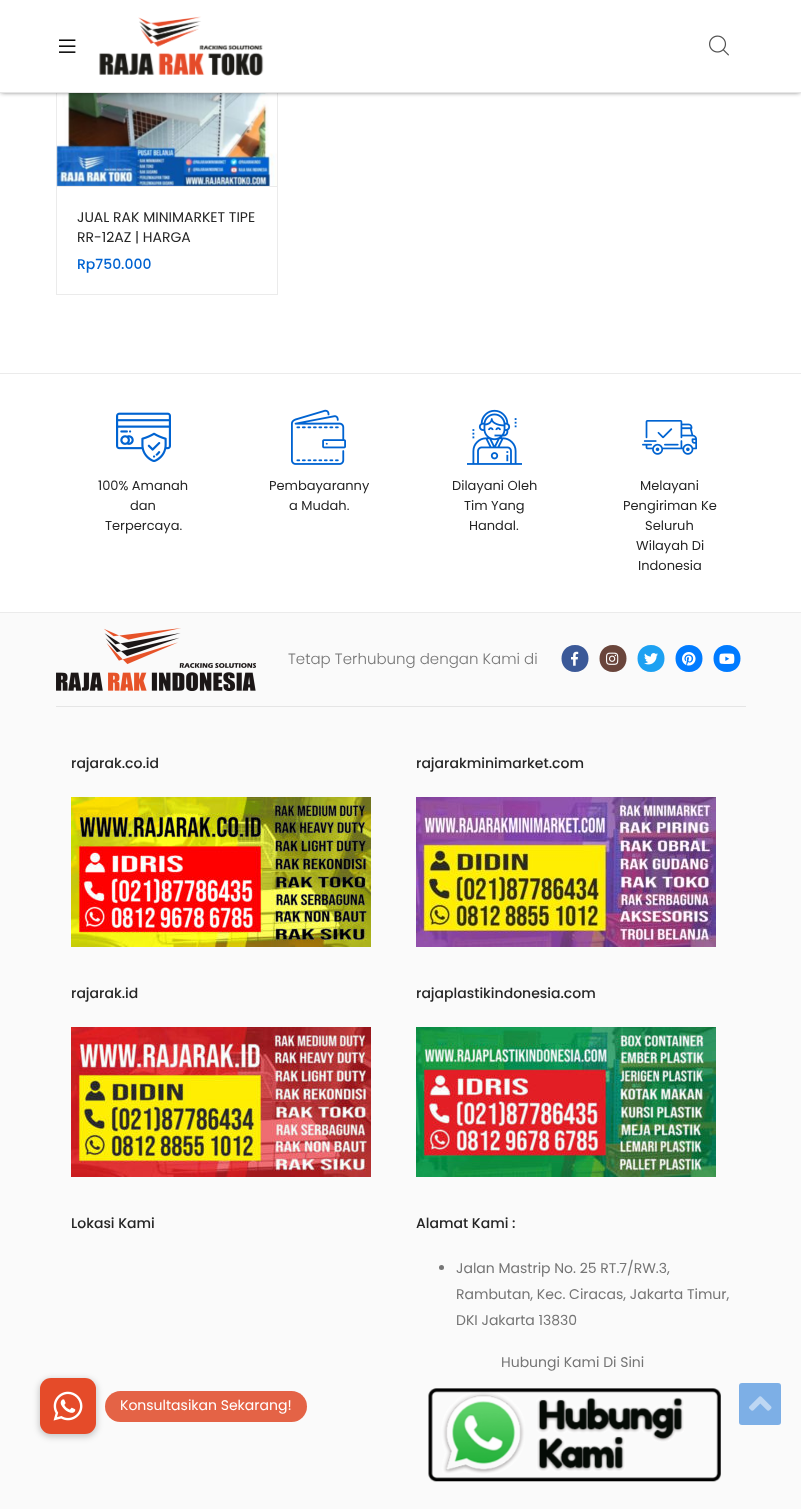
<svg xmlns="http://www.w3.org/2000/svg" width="801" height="1509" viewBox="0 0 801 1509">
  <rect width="100%" height="100%" fill="rgb(255,255,255)"/>
  <rect x="56.5" y="-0.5" width="221" height="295" fill="none" stroke="rgb(235,235,235)"/>
  <image x="56" y="93" width="221" height="93" href="pic4.png"/>
  <rect x="1" y="1" width="799" height="91" fill="rgba(0,0,0,0.66)" filter="blur(2.5px)"/>
  <rect x="0" y="0" width="801" height="92" fill="rgb(255,255,255)"/>
  <rect x="0" y="92" width="801" height="1" fill="rgb(230,230,230)"/>
  <image x="59" y="39" width="17" height="14" href="pic1.png"/>
  <image x="99" y="16" width="165" height="60" href="pic2.png"/>
  <image x="709" y="35" width="20" height="21" href="pic3.png"/>
  <rect x="57" y="186" width="220" height="1" fill="rgb(235,235,235)"/>
  <g font-family="Poppins" font-size="14" fill="rgb(37,37,37)">
    <text>
      <tspan x="77" y="222">JUAL RAK MINIMARKET TIPE</tspan>
      <tspan x="77" y="242">RR-12AZ | HARGA</tspan>
    </text>
  </g>
  <text x="77" y="269" font-family="Poppins" font-size="14" font-weight="500" fill="rgb(0,99,209)">Rp750.000</text>
  <rect x="0" y="373" width="801" height="1" fill="rgb(235,235,235)"/>
  <image x="116" y="412" width="55" height="50" href="pic5.png"/>
  <g font-family="Poppins" font-size="13" fill="rgb(37,37,37)">
    <text x="98" y="490">100% Amanah</text>
    <text x="130" y="510">dan</text>
    <text x="105" y="530">Terpercaya.</text>
  </g>
  <image x="291" y="409" width="55" height="56" href="pic6.png"/>
  <g font-family="Poppins" font-size="13" fill="rgb(37,37,37)">
    <text x="269" y="490">Pembayaranny</text>
    <text x="289" y="510">a Mudah.</text>
  </g>
  <image x="467" y="409" width="55" height="56" href="pic7.png"/>
  <g font-family="Poppins" font-size="13" fill="rgb(37,37,37)">
    <text x="452" y="490">Dilayani Oleh</text>
    <text x="464" y="510">Tim Yang</text>
    <text x="469" y="530">Handal.</text>
  </g>
  <image x="642" y="420" width="55" height="35" href="pic8.png"/>
  <g font-family="Poppins" font-size="13" fill="rgb(37,37,37)">
    <text x="640" y="490">Melayani</text>
    <text x="623" y="510">Pengiriman Ke</text>
    <text x="645" y="530">Seluruh</text>
    <text x="636" y="550">Wilayah Di</text>
    <text x="638" y="570">Indonesia</text>
  </g>
  <rect x="0" y="613" width="801" height="896" fill="rgb(250,250,250)"/>
  <rect x="0" y="612" width="801" height="1" fill="rgb(235,235,235)"/>
  <image x="56" y="628" width="200" height="63" href="pic9.png"/>
  <text x="288" y="664" font-family="Poppins" font-size="15" font-weight="300" fill="rgb(117,117,117)">Tetap Terhubung dengan Kami di</text>
  <path d="M575 645C557 645 557 672 575 672C593 672 593 645 575 645Z" fill="rgb(59,89,152)"/>
  <image x="571" y="651" width="8" height="15" href="pic10.png"/>
  <path d="M613 645C595 645 595 672 613 672C631 672 631 645 613 645Z" fill="rgb(106,69,59)"/>
  <image x="606" y="652" width="13" height="13" href="pic11.png"/>
  <path d="M651 645C633 645 633 672 651 672C669 672 669 645 651 645Z" fill="rgb(29,161,242)"/>
  <image x="644" y="653" width="14" height="12" href="pic12.png"/>
  <path d="M689 645C671 645 671 672 689 672C707 672 707 645 689 645Z" fill="rgb(0,123,255)"/>
  <image x="682" y="652" width="14" height="14" href="pic13.png"/>
  <path d="M727 645C709 645 709 672 727 672C745 672 745 645 727 645Z" fill="rgb(0,123,255)"/>
  <image x="719" y="653" width="16" height="11" href="pic14.png"/>
  <rect x="56" y="706" width="690" height="1" fill="rgb(229,229,229)"/>
  <text x="71" y="768" font-family="Poppins" font-size="14" font-weight="500" fill="rgb(37,37,37)">rajarak.co.id</text>
  <image x="71" y="797" width="300" height="150" href="pic15.png"/>
  <text x="71" y="998" font-family="Poppins" font-size="14" font-weight="500" fill="rgb(37,37,37)">rajarak.id</text>
  <image x="71" y="1027" width="300" height="150" href="pic16.png"/>
  <text x="416" y="768" font-family="Poppins" font-size="14" font-weight="500" fill="rgb(37,37,37)">rajarakminimarket.com</text>
  <image x="416" y="797" width="300" height="150" href="pic17.png"/>
  <text x="416" y="998" font-family="Poppins" font-size="14" font-weight="500" fill="rgb(37,37,37)">rajaplastikindonesia.com</text>
  <image x="416" y="1027" width="300" height="150" href="pic18.png"/>
  <g font-family="Poppins" font-size="14" font-weight="500" fill="rgb(37,37,37)">
    <text x="71" y="1228">Lokasi Kami</text>
    <text x="416" y="1228">Alamat Kami :</text>
  </g>
  <circle cx="441.5" cy="1267.5" r="2.5" fill="rgb(117,117,117)"/>
  <g font-family="Poppins" font-size="14" fill="rgb(117,117,117)">
    <text>
      <tspan x="456" y="1273">Jalan Mastrip No. 25 RT.7/RW.3,</tspan>
      <tspan x="456" y="1299">Rambutan, Kec. Ciracas, Jakarta Timur,</tspan>
      <tspan x="456" y="1325">DKI Jakarta 13830</tspan>
    </text>
    <text x="501" y="1367">Hubungi Kami Di Sini</text>
  </g>
  <image x="428" y="1388" width="293" height="94" href="pic19.png"/>
  <rect x="39" y="1379" width="58" height="58" rx="12" fill="rgba(0,0,0,0.2)" filter="blur(3px)"/>
  <rect x="40" y="1378" width="56" height="56" rx="11" fill="rgb(229,75,41)"/>
  <image x="53" y="1391" width="30" height="30" href="pic20.png"/>
  <rect x="105" y="1391" width="202" height="31" rx="15.5" fill="rgb(228,99,70)"/>
  <text x="120" y="1410" font-family="Poppins" font-size="14" fill="rgb(255,255,255)">Konsultasikan Sekarang!</text>
  <rect x="739" y="1383" width="42" height="42" rx="3" fill="rgb(125,175,230)"/>
  <image x="749" y="1396" width="23" height="15" href="pic21.png"/>
</svg>
